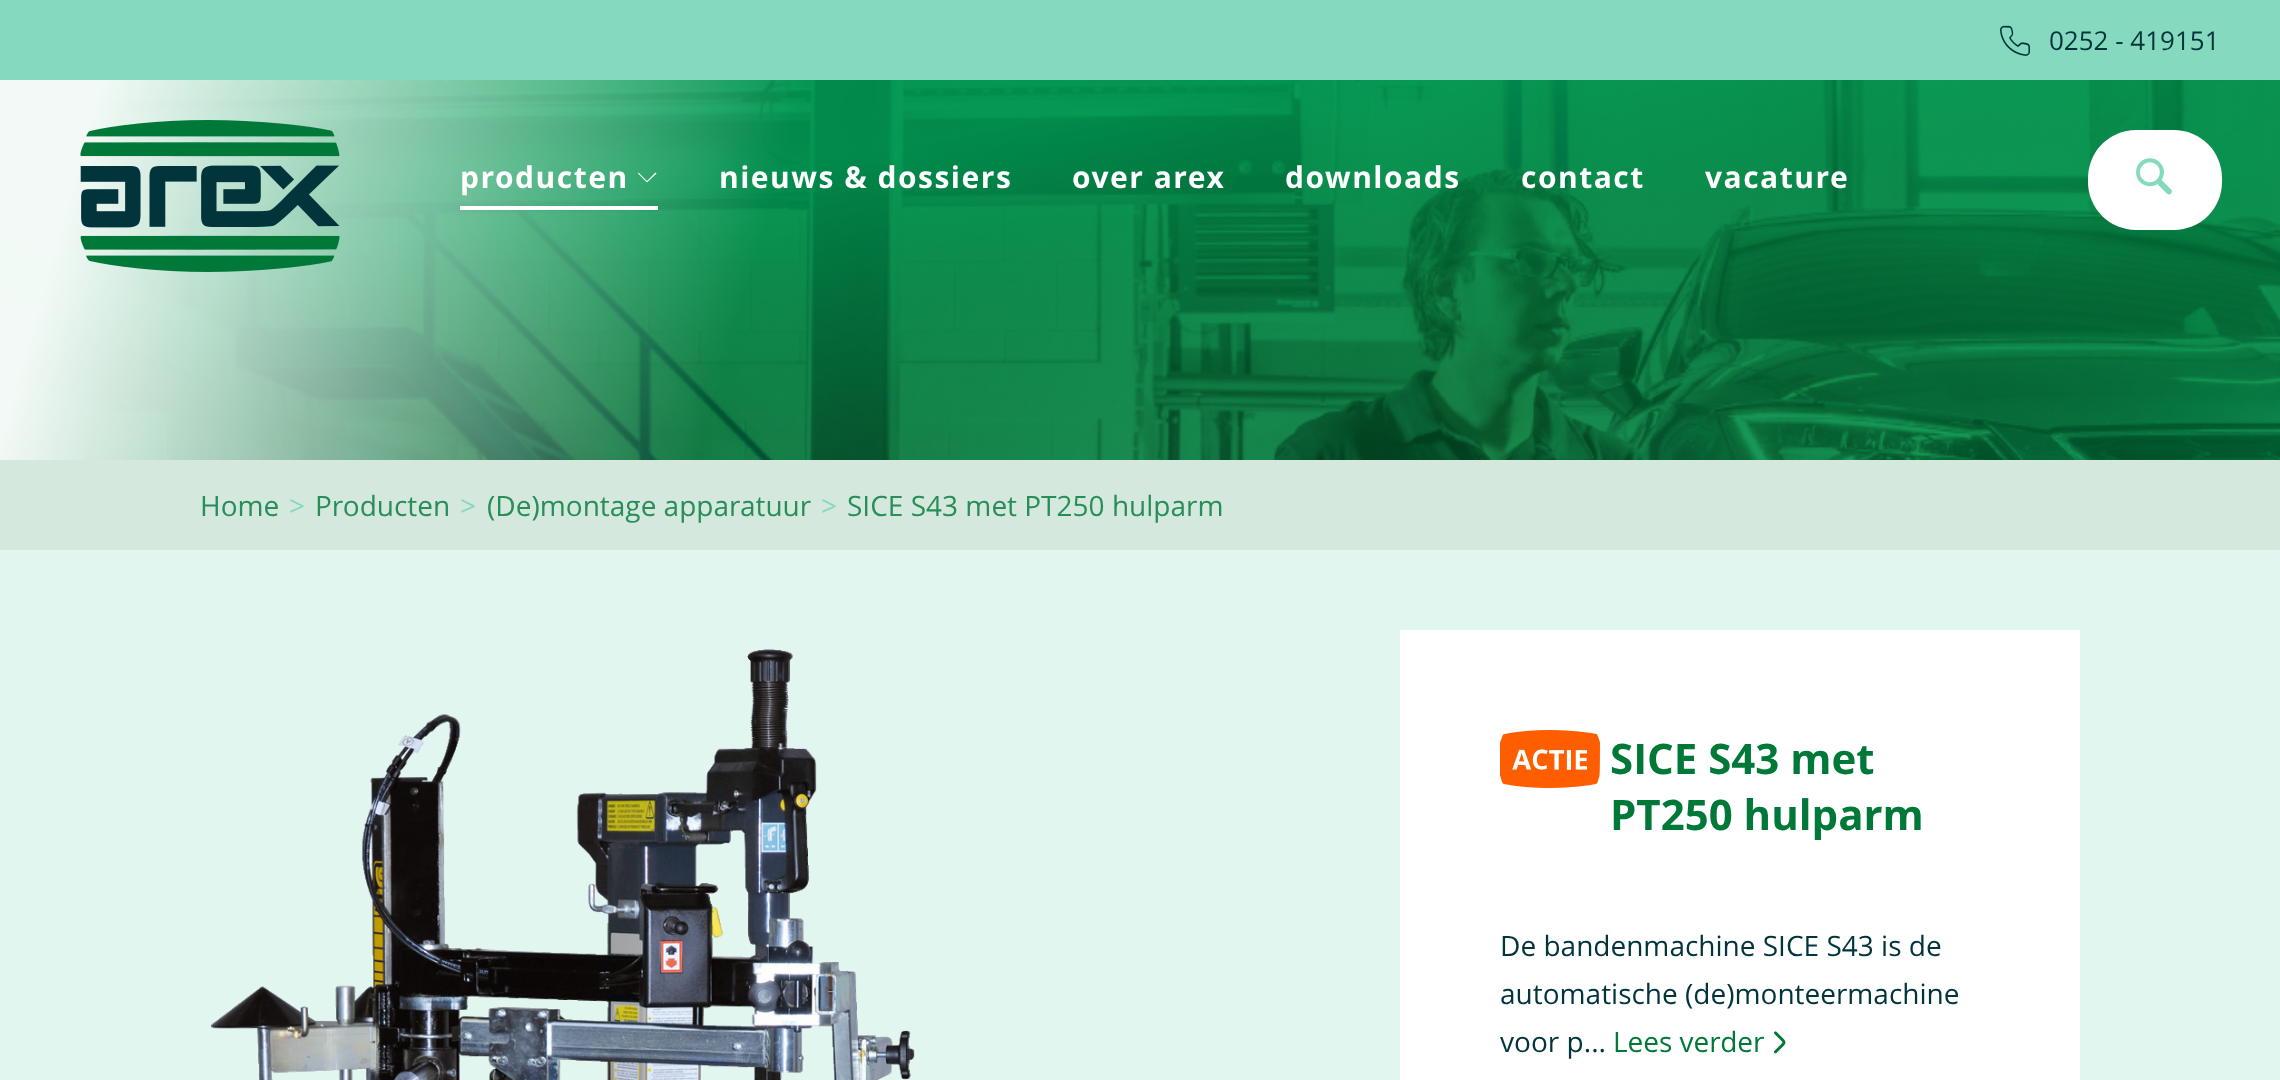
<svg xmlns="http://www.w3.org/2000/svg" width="2280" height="1080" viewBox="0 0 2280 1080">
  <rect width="100%" height="100%" fill="rgb(133,217,191)"/>
  <image x="2000" y="25" width="30" height="31" href="pic1.png"/>
  <text x="2049" y="50" font-family="Open Sans" font-size="26" fill="rgb(2,52,60)">0252 - 419151</text>
  <image x="0" y="80" width="2280" height="380" href="pic2.png"/>
  <image x="80" y="120" width="260" height="152" href="pic3.png"/>
  <rect x="460" y="206" width="198" height="4" fill="rgb(255,255,255)"/>
  <text x="460" y="188" font-family="Open Sans" font-size="30" font-weight="bold" letter-spacing="1.5" fill="rgb(255,255,255)">producten</text>
  <path d="M647 182.5L638 173.5L638.5 172.5L647 181L655.5 172.5L656.5 173.5Z" fill="rgb(255,255,255)"/>
  <g font-family="Open Sans" font-size="30" font-weight="bold" letter-spacing="1.5" fill="rgb(255,255,255)">
    <text x="719" y="188">nieuws &amp; dossiers</text>
    <text x="1072" y="188">over arex</text>
    <text x="1285" y="188">downloads</text>
    <text x="1521" y="188">contact</text>
    <text x="1705" y="188">vacature</text>
  </g>
  <rect x="2088" y="130" width="134" height="100" rx="48" fill="rgb(255,255,255)"/>
  <image x="2136" y="158" width="36" height="37" href="pic4.png"/>
  <rect x="0" y="460" width="2280" height="90" fill="rgb(212,232,221)"/>
  <text x="200" y="516" font-family="Open Sans" font-size="28" fill="rgb(39,142,87)">Home</text>
  <text x="289" y="516" font-family="Open Sans" font-size="28" fill="rgb(133,217,191)">&gt;</text>
  <text x="315" y="516" font-family="Open Sans" font-size="28" fill="rgb(39,142,87)">Producten</text>
  <text x="460" y="516" font-family="Open Sans" font-size="28" fill="rgb(133,217,191)">&gt;</text>
  <text x="487" y="516" font-family="Open Sans" font-size="28" fill="rgb(39,142,87)">(De)montage apparatuur</text>
  <text x="821" y="516" font-family="Open Sans" font-size="28" fill="rgb(133,217,191)">&gt;</text>
  <text x="847" y="516" font-family="Open Sans" font-size="28" fill="rgb(39,142,87)">SICE S43 met PT250 hulparm</text>
  <rect x="0" y="550" width="2280" height="530" fill="rgb(226,246,240)"/>
  <image x="210" y="649" width="705" height="431" href="pic5.png"/>
  <rect x="1400" y="630" width="680" height="450" fill="rgb(255,255,255)"/>
  <image x="1500" y="730" width="100" height="58" href="pic6.png"/>
  <g font-family="Open Sans" font-size="42" font-weight="bold" fill="rgb(0,121,56)">
    <text>
      <tspan x="1610" y="774">SICE S43 met</tspan>
      <tspan x="1610" y="830">PT250 hulparm</tspan>
    </text>
  </g>
  <g font-family="Open Sans" font-size="28" fill="rgb(2,52,60)">
    <text>
      <tspan x="1500" y="956">De bandenmachine SICE S43 is de</tspan>
      <tspan x="1500" y="1004">automatische (de)monteermachine</tspan>
      <tspan x="1500" y="1052">voor p...</tspan>
    </text>
  </g>
  <text x="1613" y="1052" font-family="Open Sans" font-size="28" fill="rgb(0,121,56)">Lees verder</text>
  <image x="1774" y="1031" width="12" height="23" href="pic7.png"/>
</svg>
